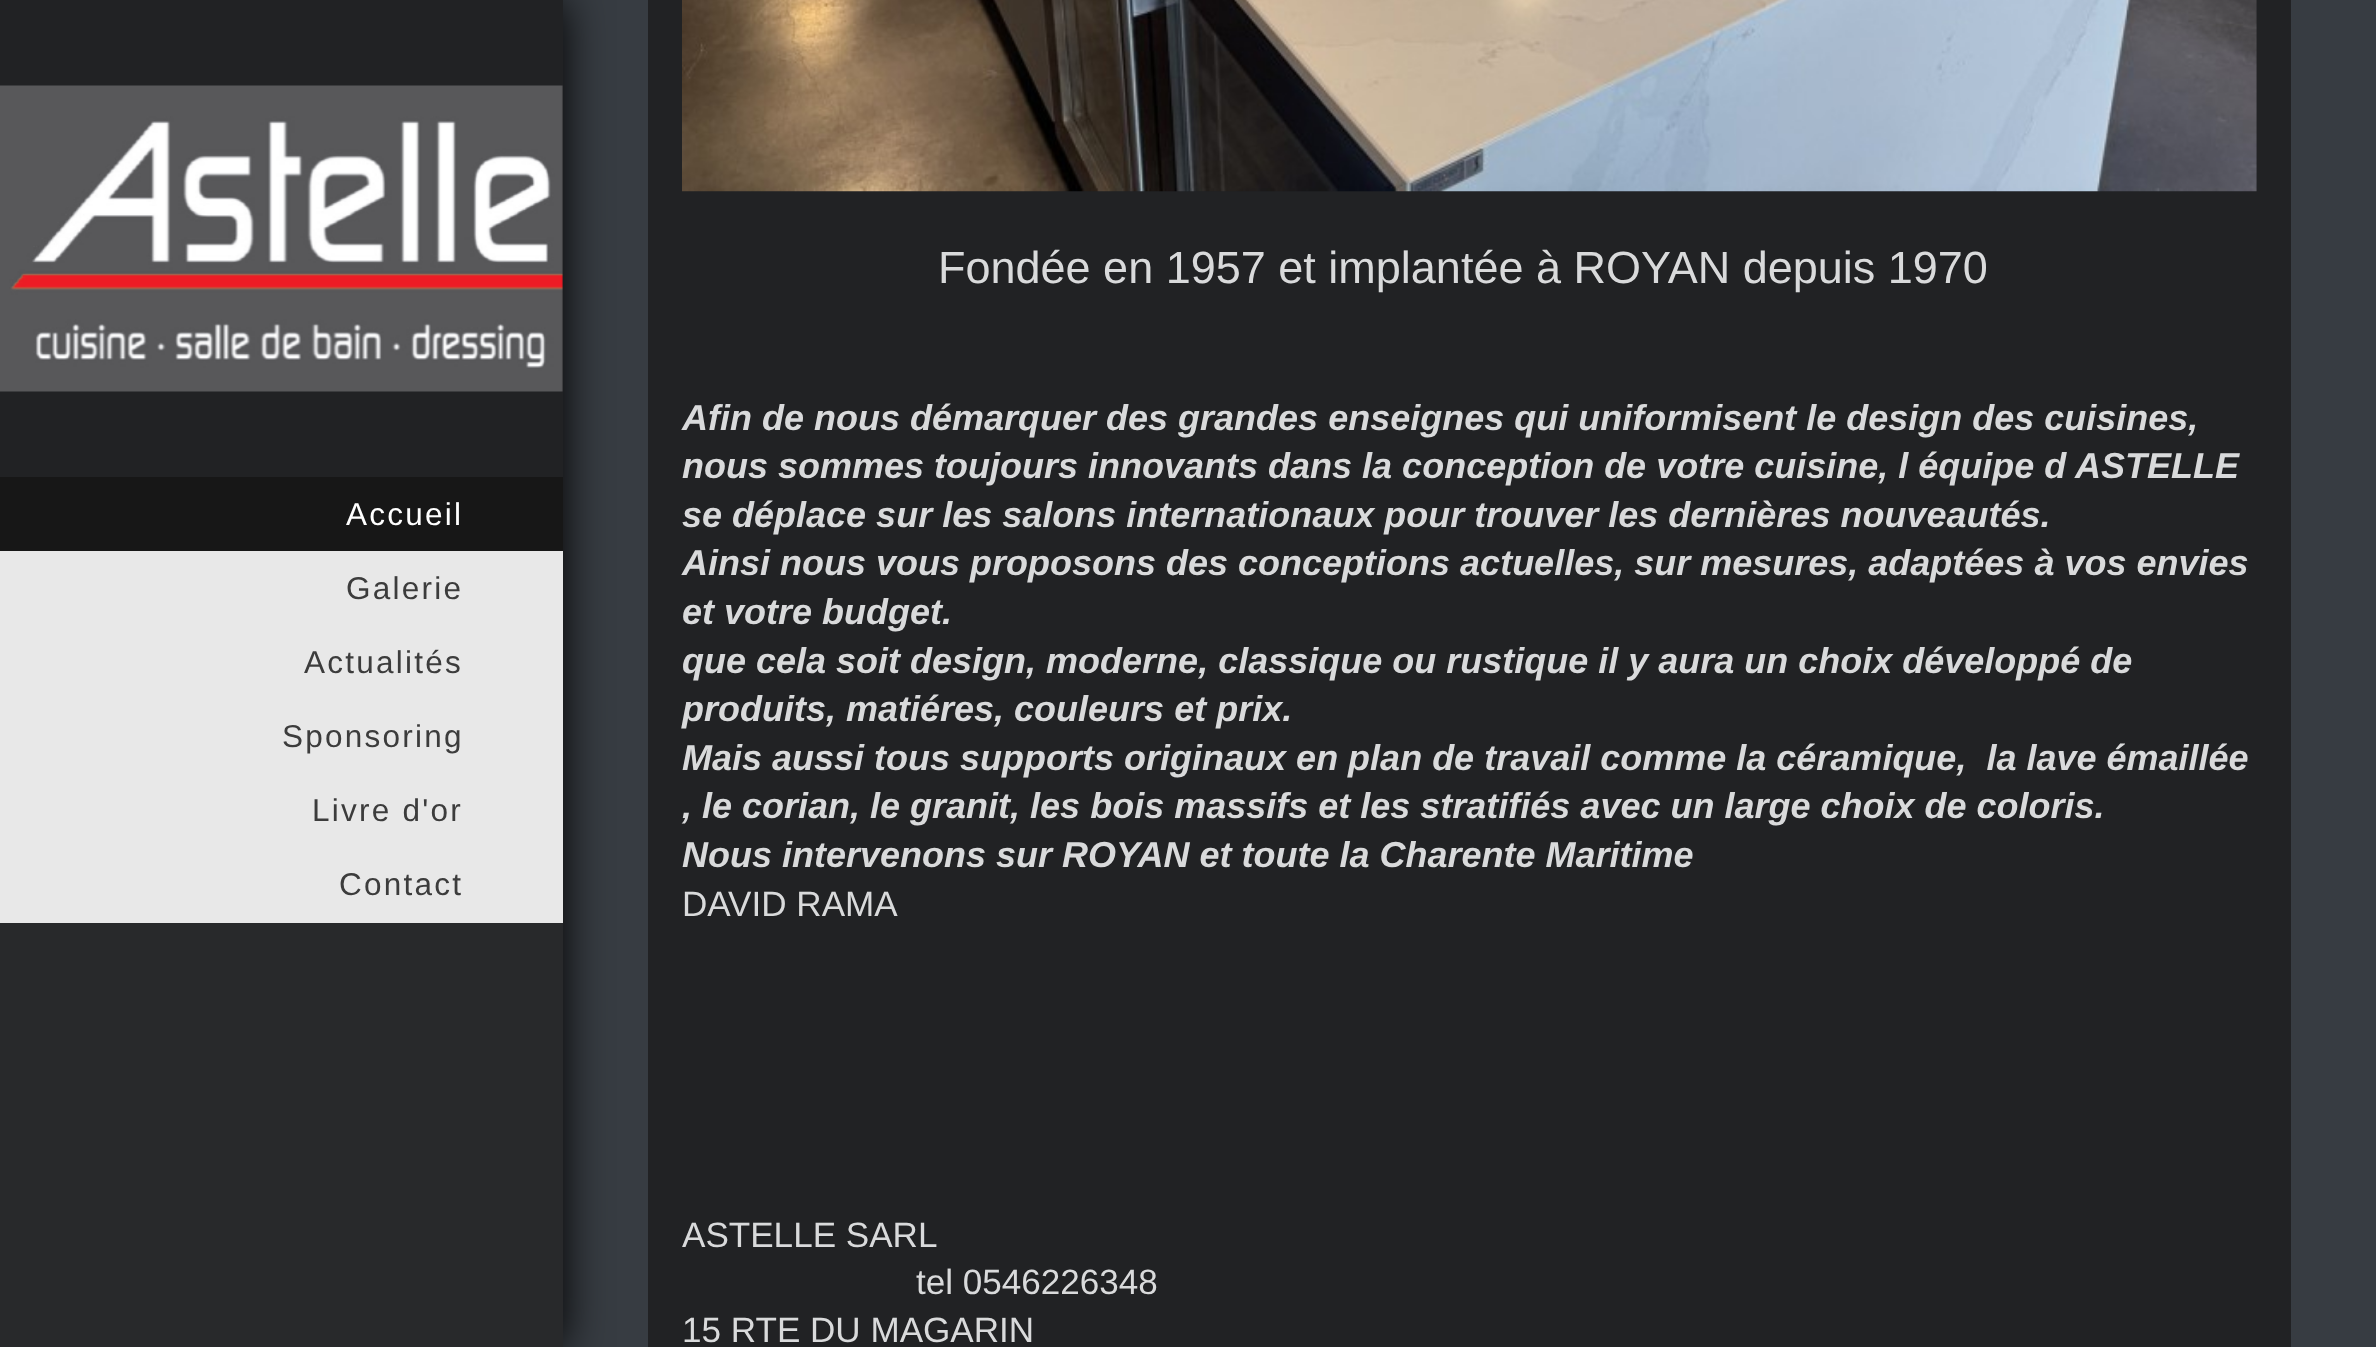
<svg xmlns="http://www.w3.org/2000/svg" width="2376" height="1347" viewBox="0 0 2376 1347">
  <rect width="100%" height="100%" fill="rgb(55,60,66)"/>
  <rect x="0" y="0" width="563" height="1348" fill="rgb(0,0,0)" filter="blur(22.5px)"/>
  <rect x="0" y="923" width="563" height="424" fill="rgb(40,41,43)"/>
  <rect x="648" y="0" width="1643" height="1347" fill="rgb(33,34,36)"/>
  <image x="682" y="0" width="1575" height="192" href="pic1.png"/>
  <text x="938" y="283" font-family="Liberation Sans" font-size="45" fill="rgb(217,218,219)">Fondée en 1957 et implantée à ROYAN depuis 1970</text>
  <g font-family="Liberation Sans" font-size="36" font-weight="bold" font-style="italic" fill="rgb(217,218,219)">
    <text xml:space="preserve"><tspan x="682" y="430">Afin de nous démarquer des grandes enseignes qui uniformisent le design des cuisines,</tspan><tspan x="682" y="478">nous sommes toujours innovants dans la conception de votre cuisine, l équipe d ASTELLE</tspan><tspan x="682" y="527">se déplace sur les salons internationaux pour trouver les dernières nouveautés.</tspan><tspan x="682" y="575">Ainsi nous vous proposons des conceptions actuelles, sur mesures, adaptées à vos envies</tspan><tspan x="682" y="624">et votre budget.</tspan><tspan x="682" y="673">que cela soit design, moderne, classique ou rustique il y aura un choix développé de</tspan><tspan x="682" y="721">produits, matiéres, couleurs et prix.</tspan><tspan x="682" y="770">Mais aussi tous supports originaux en plan de travail comme la céramique,  la lave émaillée</tspan><tspan x="682" y="818">, le corian, le granit, les bois massifs et les stratifiés avec un large choix de coloris.</tspan><tspan x="682" y="867">Nous intervenons sur ROYAN et toute la Charente Maritime</tspan></text>
  </g>
  <g font-family="Liberation Sans" font-size="35.1" fill="rgb(217,218,219)">
    <text x="682" y="916">DAVID RAMA</text>
    <text x="682" y="1247">ASTELLE SARL</text>
    <text x="916" y="1294">tel 0546226348</text>
    <text x="682" y="1342">15 RTE DU MAGARIN</text>
  </g>
  <rect x="0" y="0" width="563" height="477" fill="rgb(33,34,36)"/>
  <image x="0" y="85" width="563" height="307" href="pic2.png"/>
  <rect x="0" y="551" width="563" height="372" fill="rgb(232,232,232)"/>
  <rect x="0" y="477" width="563" height="74" fill="rgb(23,23,23)"/>
  <text x="346" y="525" font-family="Liberation Sans" font-size="31.5" letter-spacing="2.25" fill="rgb(255,255,255)">Accueil</text>
  <g font-family="Liberation Sans" font-size="31.5" letter-spacing="2.25" fill="rgb(60,60,60)">
    <text x="346" y="599">Galerie</text>
    <text x="304" y="673">Actualités</text>
    <text x="282" y="747">Sponsoring</text>
    <text x="312" y="821">Livre d'or</text>
    <text x="339" y="895">Contact</text>
  </g>
</svg>
